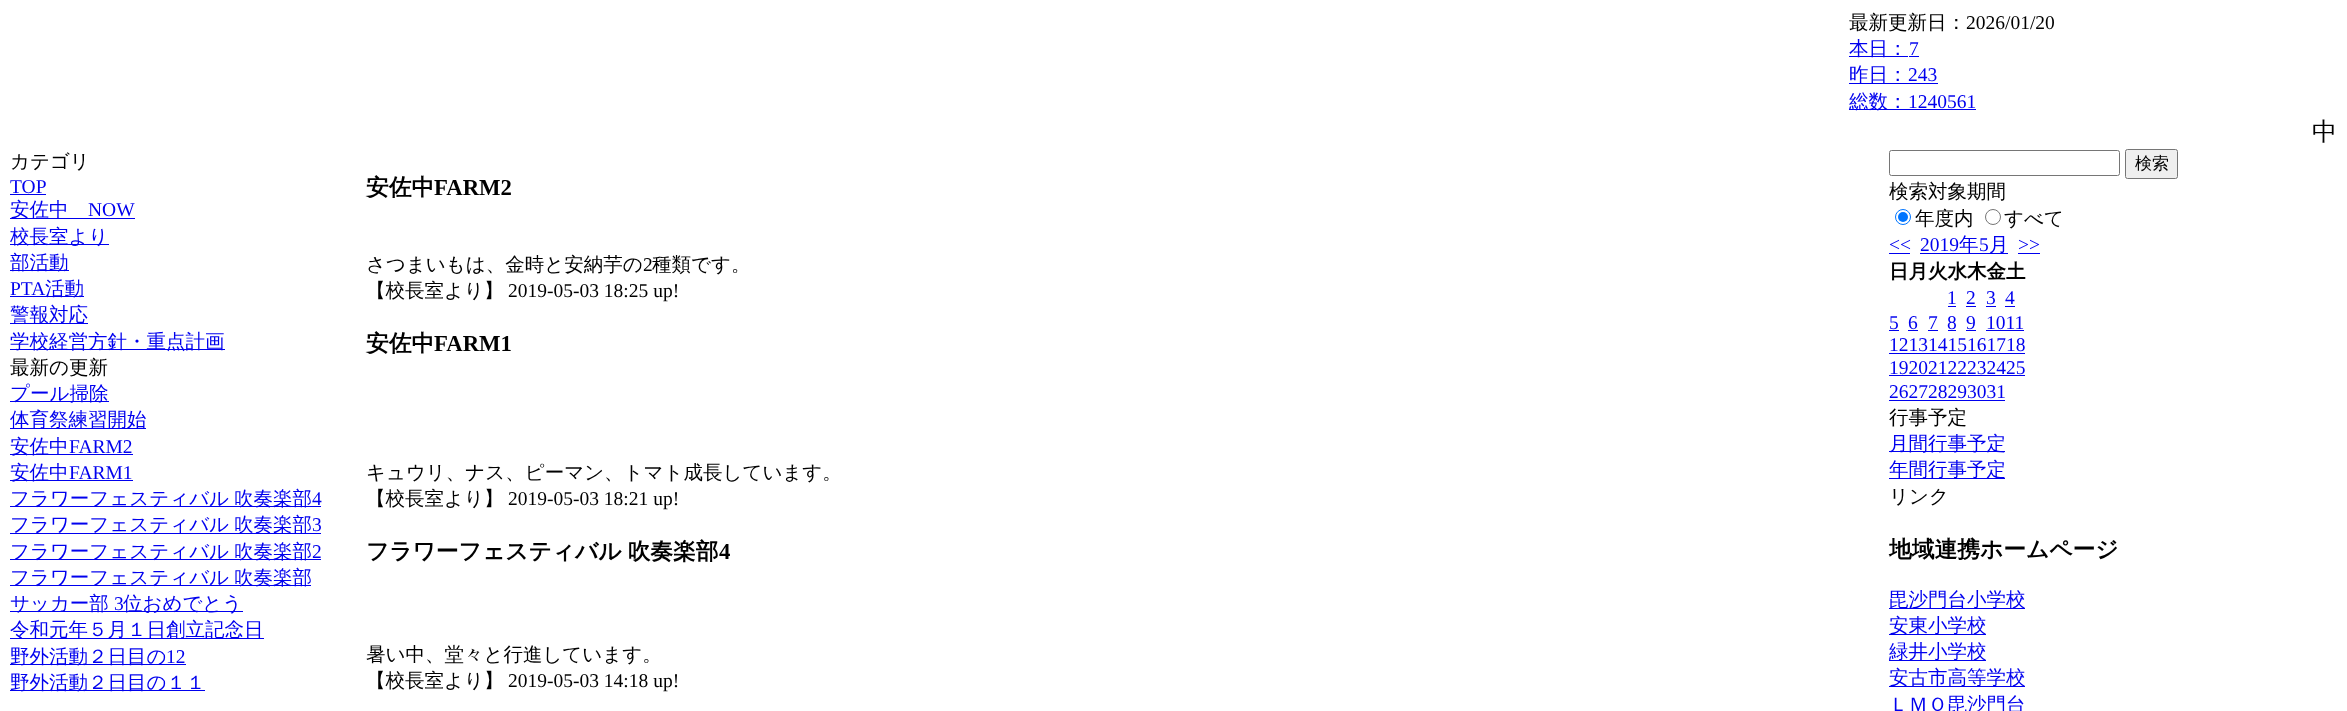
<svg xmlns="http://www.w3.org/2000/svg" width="2347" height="711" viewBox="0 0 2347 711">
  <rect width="100%" height="100%" fill="rgb(255,255,255)"/>
  <text x="1849" y="29" font-family="WenQuanYi Zen Hei" font-size="19.5" font-weight="500" fill="rgb(0,0,0)">最新更新日：</text>
  <text x="1966" y="29" font-family="Liberation Serif" font-size="19.5" fill="rgb(0,0,0)">2026/01/20</text>
  <rect x="1849" y="56" width="59" height="1" fill="rgb(0,0,238)"/>
  <text x="1849" y="55" font-family="WenQuanYi Zen Hei" font-size="19.5" font-weight="500" fill="rgb(0,0,238)">本日：</text>
  <text x="1909" y="55" font-family="Liberation Serif" font-size="19.5" fill="rgb(0,0,238)">7</text>
  <rect x="1909" y="56" width="10" height="1" fill="rgb(0,0,238)"/>
  <rect x="1849" y="83" width="89" height="1" fill="rgb(0,0,238)"/>
  <text x="1849" y="81" font-family="WenQuanYi Zen Hei" font-size="19.5" font-weight="500" fill="rgb(0,0,238)">昨日：</text>
  <text x="1908" y="81" font-family="Liberation Serif" font-size="19.5" fill="rgb(0,0,238)">243</text>
  <rect x="1849" y="109" width="127" height="1" fill="rgb(0,0,238)"/>
  <text x="1849" y="108" font-family="WenQuanYi Zen Hei" font-size="19.5" font-weight="500" fill="rgb(0,0,238)">総数：</text>
  <text x="1908" y="108" font-family="Liberation Serif" font-size="19.5" fill="rgb(0,0,238)">1240561</text>
  <text x="2312" y="140" font-family="WenQuanYi Zen Hei" font-size="25" font-weight="500" fill="rgb(0,0,0)">中</text>
  <text x="10" y="168" font-family="WenQuanYi Zen Hei" font-size="19.5" font-weight="500" fill="rgb(0,0,0)">カテゴリ</text>
  <text x="10" y="193" font-family="Liberation Serif" font-size="19.5" fill="rgb(0,0,238)">TOP</text>
  <rect x="10" y="194" width="36" height="1" fill="rgb(0,0,238)"/>
  <rect x="10" y="218" width="125" height="1" fill="rgb(0,0,238)"/>
  <text x="10" y="216" font-family="WenQuanYi Zen Hei" font-size="19.5" font-weight="500" fill="rgb(0,0,238)">安佐中</text>
  <text x="88" y="216" font-family="Liberation Serif" font-size="19.5" fill="rgb(0,0,238)">NOW</text>
  <rect x="10" y="244" width="99" height="1" fill="rgb(0,0,238)"/>
  <text x="10" y="243" font-family="WenQuanYi Zen Hei" font-size="19.5" font-weight="500" fill="rgb(0,0,238)">校長室より</text>
  <rect x="10" y="270" width="59" height="1" fill="rgb(0,0,238)"/>
  <text x="10" y="269" font-family="WenQuanYi Zen Hei" font-size="19.5" font-weight="500" fill="rgb(0,0,238)">部活動</text>
  <text x="10" y="295" font-family="Liberation Serif" font-size="19.5" fill="rgb(0,0,238)">PTA</text>
  <rect x="10" y="296" width="74" height="1" fill="rgb(0,0,238)"/>
  <text x="45" y="295" font-family="WenQuanYi Zen Hei" font-size="19.5" font-weight="500" fill="rgb(0,0,238)">活動</text>
  <rect x="10" y="323" width="78" height="1" fill="rgb(0,0,238)"/>
  <text x="10" y="321" font-family="WenQuanYi Zen Hei" font-size="19.5" font-weight="500" fill="rgb(0,0,238)">警報対応</text>
  <rect x="10" y="349" width="215" height="1" fill="rgb(0,0,238)"/>
  <text x="10" y="348" font-family="WenQuanYi Zen Hei" font-size="19.5" font-weight="500" fill="rgb(0,0,238)">学校経営方針・重点計画</text>
  <text x="10" y="374" font-family="WenQuanYi Zen Hei" font-size="19.5" font-weight="500" fill="rgb(0,0,0)">最新の更新</text>
  <rect x="10" y="401" width="99" height="1" fill="rgb(0,0,238)"/>
  <text x="10" y="400" font-family="WenQuanYi Zen Hei" font-size="19.5" font-weight="500" fill="rgb(0,0,238)">プール掃除</text>
  <rect x="10" y="428" width="136" height="1" fill="rgb(0,0,238)"/>
  <text x="10" y="426" font-family="WenQuanYi Zen Hei" font-size="19.5" font-weight="500" fill="rgb(0,0,238)">体育祭練習開始</text>
  <rect x="10" y="454" width="123" height="1" fill="rgb(0,0,238)"/>
  <text x="10" y="453" font-family="WenQuanYi Zen Hei" font-size="19.5" font-weight="500" fill="rgb(0,0,238)">安佐中</text>
  <text x="69" y="453" font-family="Liberation Serif" font-size="19.5" fill="rgb(0,0,238)">FARM2</text>
  <rect x="10" y="480" width="123" height="1" fill="rgb(0,0,238)"/>
  <text x="10" y="479" font-family="WenQuanYi Zen Hei" font-size="19.5" font-weight="500" fill="rgb(0,0,238)">安佐中</text>
  <text x="69" y="479" font-family="Liberation Serif" font-size="19.5" fill="rgb(0,0,238)">FARM1</text>
  <rect x="10" y="506" width="311" height="1" fill="rgb(0,0,238)"/>
  <text x="10" y="505" word-spacing="-1" font-family="WenQuanYi Zen Hei" font-size="19.5" font-weight="500" fill="rgb(0,0,238)">フラワーフェスティバル 吹奏楽部</text>
  <text x="312" y="505" font-family="Liberation Serif" font-size="19.5" fill="rgb(0,0,238)">4</text>
  <rect x="10" y="533" width="311" height="1" fill="rgb(0,0,238)"/>
  <text x="10" y="531" word-spacing="-1" font-family="WenQuanYi Zen Hei" font-size="19.5" font-weight="500" fill="rgb(0,0,238)">フラワーフェスティバル 吹奏楽部</text>
  <text x="312" y="531" font-family="Liberation Serif" font-size="19.5" fill="rgb(0,0,238)">3</text>
  <rect x="10" y="559" width="311" height="1" fill="rgb(0,0,238)"/>
  <text x="10" y="558" word-spacing="-1" font-family="WenQuanYi Zen Hei" font-size="19.5" font-weight="500" fill="rgb(0,0,238)">フラワーフェスティバル 吹奏楽部</text>
  <text x="312" y="558" font-family="Liberation Serif" font-size="19.5" fill="rgb(0,0,238)">2</text>
  <rect x="10" y="585" width="301" height="1" fill="rgb(0,0,238)"/>
  <g font-family="WenQuanYi Zen Hei" font-size="19.5" font-weight="500" fill="rgb(0,0,238)">
    <text x="10" y="584">フラワーフェスティバル</text>
    <text x="234" y="584">吹奏楽部</text>
  </g>
  <rect x="10" y="611" width="233" height="1" fill="rgb(0,0,238)"/>
  <text x="10" y="610" font-family="WenQuanYi Zen Hei" font-size="19.5" font-weight="500" fill="rgb(0,0,238)">サッカー部</text>
  <text x="114" y="610" font-family="Liberation Serif" font-size="19.5" fill="rgb(0,0,238)">3</text>
  <text x="123" y="610" font-family="WenQuanYi Zen Hei" font-size="19.5" font-weight="500" fill="rgb(0,0,238)">位おめでとう</text>
  <rect x="10" y="638" width="254" height="1" fill="rgb(0,0,238)"/>
  <text x="10" y="636" font-family="WenQuanYi Zen Hei" font-size="19.5" font-weight="500" fill="rgb(0,0,238)">令和元年５月１日創立記念日</text>
  <rect x="10" y="664" width="176" height="1" fill="rgb(0,0,238)"/>
  <text x="10" y="663" font-family="WenQuanYi Zen Hei" font-size="19.5" font-weight="500" fill="rgb(0,0,238)">野外活動２日目の</text>
  <text x="166" y="663" font-family="Liberation Serif" font-size="19.5" fill="rgb(0,0,238)">12</text>
  <rect x="10" y="690" width="195" height="1" fill="rgb(0,0,238)"/>
  <text x="10" y="689" font-family="WenQuanYi Zen Hei" font-size="19.5" font-weight="500" fill="rgb(0,0,238)">野外活動２日目の１１</text>
  <text x="366" y="195" font-family="WenQuanYi Zen Hei" font-size="22.75" font-weight="bold" fill="rgb(0,0,0)">安佐中</text>
  <text x="434" y="195" font-family="Liberation Serif" font-size="22.75" font-weight="bold" fill="rgb(0,0,0)">FARM2</text>
  <text x="366" y="271" font-family="WenQuanYi Zen Hei" font-size="19.5" font-weight="500" fill="rgb(0,0,0)">さつまいもは、金時と安納芋の</text>
  <text x="643" y="271" font-family="Liberation Serif" font-size="19.5" fill="rgb(0,0,0)">2</text>
  <g font-family="WenQuanYi Zen Hei" font-size="19.5" font-weight="500" fill="rgb(0,0,0)">
    <text x="652" y="271">種類です。</text>
    <text x="366" y="297">【校長室より】</text>
  </g>
  <text x="508" y="297" font-family="Liberation Serif" font-size="19.5" fill="rgb(0,0,0)">2019-05-03 18:25 up!</text>
  <text x="366" y="351" font-family="WenQuanYi Zen Hei" font-size="22.75" font-weight="bold" fill="rgb(0,0,0)">安佐中</text>
  <text x="434" y="351" font-family="Liberation Serif" font-size="22.75" font-weight="bold" fill="rgb(0,0,0)">FARM1</text>
  <g font-family="WenQuanYi Zen Hei" font-size="19.5" font-weight="500" fill="rgb(0,0,0)">
    <text>
      <tspan x="366" y="479">キュウリ、ナス、ピーマン、トマト成長しています。</tspan>
      <tspan x="366" y="505">【校長室より】</tspan>
    </text>
  </g>
  <text x="508" y="505" font-family="Liberation Serif" font-size="19.5" fill="rgb(0,0,0)">2019-05-03 18:21 up!</text>
  <text x="366" y="559" word-spacing="-1" font-family="WenQuanYi Zen Hei" font-size="22.75" font-weight="bold" fill="rgb(0,0,0)">フラワーフェスティバル 吹奏楽部</text>
  <text x="719" y="559" font-family="Liberation Serif" font-size="22.75" font-weight="bold" fill="rgb(0,0,0)">4</text>
  <g font-family="WenQuanYi Zen Hei" font-size="19.5" font-weight="500" fill="rgb(0,0,0)">
    <text>
      <tspan x="366" y="661">暑い中、堂々と行進しています。</tspan>
      <tspan x="366" y="687">【校長室より】</tspan>
    </text>
  </g>
  <text x="508" y="687" font-family="Liberation Serif" font-size="19.5" fill="rgb(0,0,0)">2019-05-03 14:18 up!</text>
  <rect x="1889.5" y="150.5" width="230" height="25" rx="2" fill="none" stroke="rgb(118,118,118)"/>
  <rect x="2125.5" y="149.5" width="52" height="29" rx="2" fill="rgb(239,239,239)" stroke="rgb(118,118,118)"/>
  <text x="2135" y="169" font-family="WenQuanYi Zen Hei" font-size="17" font-weight="500" fill="rgb(0,0,0)">検索</text>
  <text x="1889" y="198" font-family="WenQuanYi Zen Hei" font-size="19.5" font-weight="500" fill="rgb(0,0,0)">検索対象期間</text>
  <circle cx="1903" cy="217" r="7.5" fill="none" stroke="rgb(0,117,255)"/>
  <circle cx="1903" cy="217" r="5" fill="rgb(0,117,255)"/>
  <text x="1915" y="225" font-family="WenQuanYi Zen Hei" font-size="19.5" font-weight="500" fill="rgb(0,0,0)">年度内</text>
  <circle cx="1993" cy="217" r="7.5" fill="none" stroke="rgb(118,118,118)"/>
  <text x="2004" y="225" font-family="WenQuanYi Zen Hei" font-size="19.5" font-weight="500" fill="rgb(0,0,0)">すべて</text>
  <text x="1889" y="251" font-family="Liberation Serif" font-size="19.5" fill="rgb(0,0,238)">&lt;&lt;</text>
  <rect x="1889" y="253" width="21" height="1" fill="rgb(0,0,238)"/>
  <text x="1920" y="251" font-family="Liberation Serif" font-size="19.5" fill="rgb(0,0,238)">2019</text>
  <rect x="1920" y="253" width="88" height="1" fill="rgb(0,0,238)"/>
  <text x="1959" y="251" font-family="WenQuanYi Zen Hei" font-size="19.5" font-weight="500" fill="rgb(0,0,238)">年</text>
  <text x="1979" y="251" font-family="Liberation Serif" font-size="19.5" fill="rgb(0,0,238)">5</text>
  <text x="1989" y="251" font-family="WenQuanYi Zen Hei" font-size="19.5" font-weight="500" fill="rgb(0,0,238)">月</text>
  <text x="2018" y="251" font-family="Liberation Serif" font-size="19.5" fill="rgb(0,0,238)">&gt;&gt;</text>
  <rect x="2018" y="253" width="22" height="1" fill="rgb(0,0,238)"/>
  <text x="1889" y="278" font-family="WenQuanYi Zen Hei" font-size="19.5" font-weight="bold" fill="rgb(0,0,0)">日月火水木金土</text>
  <text x="1947" y="304" font-family="Liberation Serif" font-size="19.5" fill="rgb(0,0,238)">1</text>
  <rect x="1948" y="306" width="8" height="1" fill="rgb(0,0,238)"/>
  <text x="1966" y="304" font-family="Liberation Serif" font-size="19.5" fill="rgb(0,0,238)">2</text>
  <rect x="1966" y="306" width="10" height="1" fill="rgb(0,0,238)"/>
  <text x="1986" y="304" font-family="Liberation Serif" font-size="19.5" fill="rgb(0,0,238)">3</text>
  <rect x="1986" y="306" width="10" height="1" fill="rgb(0,0,238)"/>
  <text x="2005" y="304" font-family="Liberation Serif" font-size="19.5" fill="rgb(0,0,238)">4</text>
  <rect x="2005" y="306" width="10" height="1" fill="rgb(0,0,238)"/>
  <text x="1889" y="329" font-family="Liberation Serif" font-size="19.5" fill="rgb(0,0,238)">5</text>
  <rect x="1889" y="330" width="10" height="1" fill="rgb(0,0,238)"/>
  <text x="1908" y="329" font-family="Liberation Serif" font-size="19.5" fill="rgb(0,0,238)">6</text>
  <rect x="1908" y="330" width="10" height="1" fill="rgb(0,0,238)"/>
  <text x="1928" y="329" font-family="Liberation Serif" font-size="19.5" fill="rgb(0,0,238)">7</text>
  <rect x="1928" y="330" width="10" height="1" fill="rgb(0,0,238)"/>
  <text x="1947" y="329" font-family="Liberation Serif" font-size="19.5" fill="rgb(0,0,238)">8</text>
  <rect x="1948" y="330" width="8" height="1" fill="rgb(0,0,238)"/>
  <text x="1966" y="329" font-family="Liberation Serif" font-size="19.5" fill="rgb(0,0,238)">9</text>
  <rect x="1966" y="330" width="10" height="1" fill="rgb(0,0,238)"/>
  <text x="1986" y="329" font-family="Liberation Serif" font-size="19.5" fill="rgb(0,0,238)">1011</text>
  <rect x="1986" y="330" width="38" height="1" fill="rgb(0,0,238)"/>
  <text x="1889" y="351" font-family="Liberation Serif" font-size="19.5" fill="rgb(0,0,238)">12131415161718</text>
  <rect x="1889" y="353" width="136" height="1" fill="rgb(0,0,238)"/>
  <text x="1889" y="374" font-family="Liberation Serif" font-size="19.5" fill="rgb(0,0,238)">19202122232425</text>
  <rect x="1889" y="375" width="136" height="1" fill="rgb(0,0,238)"/>
  <text x="1889" y="398" font-family="Liberation Serif" font-size="19.5" fill="rgb(0,0,238)">262728293031</text>
  <rect x="1889" y="400" width="116" height="1" fill="rgb(0,0,238)"/>
  <text x="1889" y="424" font-family="WenQuanYi Zen Hei" font-size="19.5" font-weight="500" fill="rgb(0,0,0)">行事予定</text>
  <rect x="1889" y="451" width="116" height="1" fill="rgb(0,0,238)"/>
  <text x="1889" y="450" font-family="WenQuanYi Zen Hei" font-size="19.5" font-weight="500" fill="rgb(0,0,238)">月間行事予定</text>
  <rect x="1889" y="478" width="116" height="1" fill="rgb(0,0,238)"/>
  <text x="1889" y="476" font-family="WenQuanYi Zen Hei" font-size="19.5" font-weight="500" fill="rgb(0,0,238)">年間行事予定</text>
  <text x="1889" y="503" font-family="WenQuanYi Zen Hei" font-size="19.5" font-weight="500" fill="rgb(0,0,0)">リンク</text>
  <text x="1889" y="557" font-family="WenQuanYi Zen Hei" font-size="22.75" font-weight="bold" fill="rgb(0,0,0)">地域連携ホームページ</text>
  <rect x="1889" y="608" width="136" height="1" fill="rgb(0,0,238)"/>
  <text x="1889" y="606" font-family="WenQuanYi Zen Hei" font-size="19.5" font-weight="500" fill="rgb(0,0,238)">毘沙門台小学校</text>
  <rect x="1889" y="634" width="97" height="1" fill="rgb(0,0,238)"/>
  <text x="1889" y="632" font-family="WenQuanYi Zen Hei" font-size="19.5" font-weight="500" fill="rgb(0,0,238)">安東小学校</text>
  <rect x="1889" y="660" width="97" height="1" fill="rgb(0,0,238)"/>
  <text x="1889" y="658" font-family="WenQuanYi Zen Hei" font-size="19.5" font-weight="500" fill="rgb(0,0,238)">緑井小学校</text>
  <rect x="1889" y="686" width="136" height="1" fill="rgb(0,0,238)"/>
  <g font-family="WenQuanYi Zen Hei" font-size="19.5" font-weight="500" fill="rgb(0,0,238)">
    <text>
      <tspan x="1889" y="684">安古市高等学校</tspan>
      <tspan x="1889" y="711">ＬＭＯ毘沙門台</tspan>
    </text>
  </g>
</svg>
